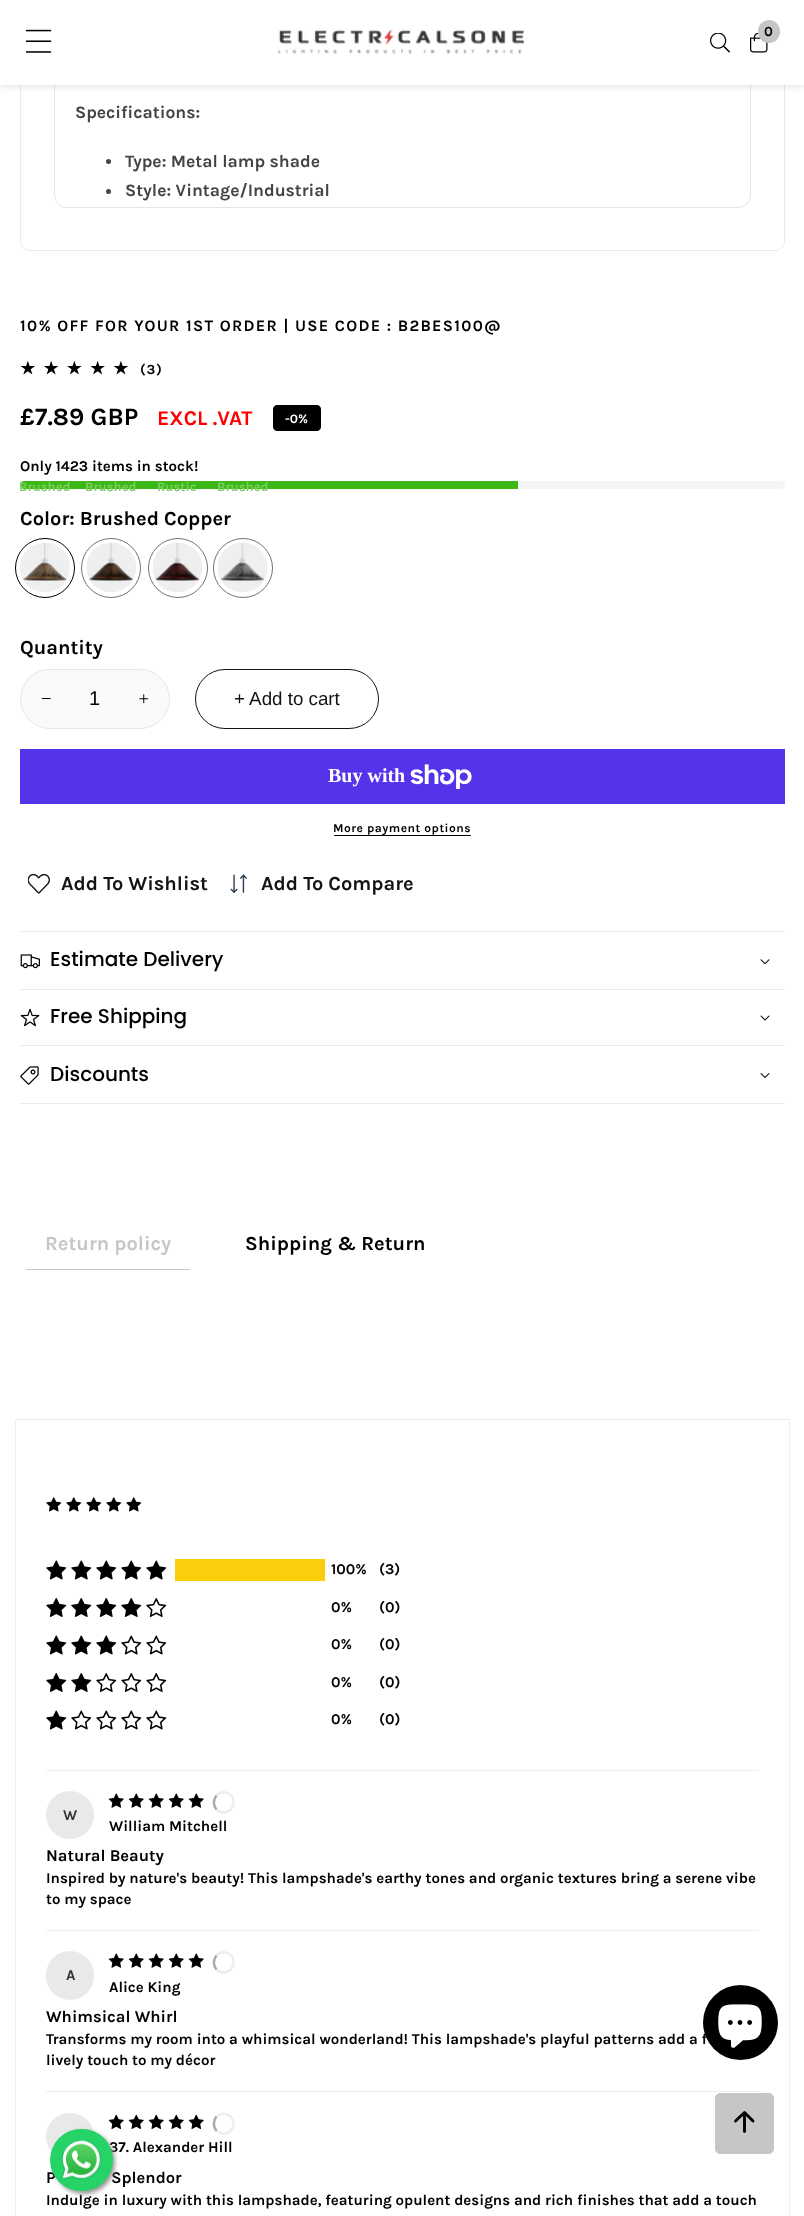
<svg xmlns="http://www.w3.org/2000/svg" width="804" height="2216" viewBox="0 0 804 2216">
  <defs>
    <linearGradient id="g1" gradientUnits="userSpaceOnUse" x1="20" y1="368" x2="136" y2="368"><stop offset="1" stop-color="rgb(0,0,0)"/><stop offset="1" stop-color="rgb(217,217,217)"/></linearGradient>
  </defs>
  <rect width="100%" height="100%" fill="rgb(255,255,255)"/>
  <rect x="20.5" y="-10.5" width="764" height="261" rx="9.5" fill="none" stroke="rgb(234,234,234)"/>
  <rect x="54.5" y="-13.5" width="696" height="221" rx="12.5" fill="none" stroke="rgb(229,229,229)"/>
  <rect x="0" y="0" width="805" height="85" fill="rgba(0,0,0,0.15)" filter="blur(4.5px)"/>
  <rect x="0" y="0" width="804" height="85" fill="rgb(255,255,255)"/>
  <image x="25" y="29" width="27" height="24" href="pic1.png"/>
  <image x="277" y="29" width="248" height="25" href="pic2.png"/>
  <image x="750" y="33" width="18" height="20" href="pic3.png"/>
  <rect x="758" y="20" width="22" height="23" rx="11" fill="rgb(198,198,198)"/>
  <text x="764" y="36" font-family="Karla" font-size="14" font-weight="bold" fill="rgb(0,0,0)">0</text>
  <image x="710" y="33" width="20" height="20" href="pic4.png"/>
  <text x="75" y="118" font-family="Karla" font-size="17.5" font-weight="bold" fill="rgb(68,68,68)">Specifications:</text>
  <circle cx="108.5" cy="161.5" r="2.5" fill="rgb(68,68,68)"/>
  <text x="125" y="167" font-family="Karla" font-size="17.5" font-weight="bold" fill="rgb(68,68,68)">Type: Metal lamp shade</text>
  <circle cx="108.5" cy="191.5" r="2.5" fill="rgb(68,68,68)"/>
  <text x="125" y="196" font-family="Karla" font-size="17.5" font-weight="bold" fill="rgb(68,68,68)">Style: Vintage/Industrial</text>
  <text x="20" y="331" font-family="Karla" font-size="16" font-weight="bold" letter-spacing="1.3" fill="rgb(0,0,0)">10% OFF FOR YOUR 1ST ORDER | USE CODE : B2BES100@</text>
  <text x="20" y="374" font-family="DejaVu Sans" font-size="17" font-weight="bold" letter-spacing="8" fill="url(#g1)">★★★★★</text>
  <text x="140" y="374" font-family="Karla" font-size="14" font-weight="bold" letter-spacing="1" fill="rgb(0,0,0)">(3)</text>
  <text x="20" y="425" font-family="Karla" font-size="25" font-weight="bold" fill="rgb(0,0,0)">£7.89 GBP</text>
  <text x="157" y="425" font-family="Karla" font-size="21" font-weight="bold" fill="rgb(255,0,0)">EXCL .VAT</text>
  <path d="M277 405H290V431H277C275 431 273 429 273 427V409C273 407 275 405 277 405Z" fill="rgb(0,0,0)"/>
  <rect x="290" y="405" width="9" height="26" fill="rgb(0,0,0)"/>
  <path d="M299 405H317C319 405 321 407 321 409V427C321 429 319 431 317 431H299Z" fill="rgb(0,0,0)"/>
  <text x="285" y="423" font-family="Karla" font-size="13" font-weight="bold" fill="rgb(255,255,255)">-0%</text>
  <text x="20" y="471" font-family="Karla" font-size="15" font-weight="bold" fill="rgb(0,0,0)">Only 1423 items in stock!</text>
  <rect x="20" y="481" width="765" height="8" rx="4" fill="rgb(245,245,245)"/>
  <path d="M24 481H518V489H24C22 489 20 487 20 485C20 483 22 481 24 481Z" fill="rgb(60,184,21)"/>
  <image x="20" y="542" width="50" height="50" href="pic5.png"/>
  <circle cx="45" cy="568" r="29.5" fill="none" stroke="rgb(0,0,0)"/>
  <text x="19" y="491" font-family="Karla" font-size="13" font-weight="bold" fill="rgb(122,207,95)">Brushed</text>
  <image x="86" y="542" width="50" height="51" href="pic6.png"/>
  <circle cx="111" cy="568" r="29.5" fill="none" stroke="rgb(115,115,115)"/>
  <text x="85" y="491" font-family="Karla" font-size="13" font-weight="bold" fill="rgb(122,207,95)">Brushed</text>
  <image x="153" y="542" width="50" height="51" href="pic7.png"/>
  <circle cx="178" cy="568" r="29.5" fill="none" stroke="rgb(115,115,115)"/>
  <text x="157" y="491" font-family="Karla" font-size="13" font-weight="bold" fill="rgb(122,207,95)">Rustic</text>
  <image x="217" y="542" width="51" height="51" href="pic8.png"/>
  <circle cx="243" cy="568" r="29.5" fill="none" stroke="rgb(115,115,115)"/>
  <text x="217" y="491" font-family="Karla" font-size="13" font-weight="bold" fill="rgb(122,207,95)">Brushed</text>
  <g font-family="Karla" font-size="20" font-weight="bold" fill="rgb(0,0,0)">
    <text x="20" y="525">Color: Brushed Copper</text>
    <text x="20" y="654">Quantity</text>
  </g>
  <rect x="20.5" y="669.5" width="149" height="59" rx="29.5" fill="rgb(250,250,250)" stroke="rgb(230,230,230)"/>
  <image x="41" y="698" width="10" height="1" href="pic9.png"/>
  <text x="89" y="705" font-family="Liberation Sans" font-size="20" fill="rgb(0,0,0)">1</text>
  <image x="139" y="694" width="10" height="10" href="pic10.png"/>
  <rect x="195.5" y="669.5" width="183" height="59" rx="29.5" fill="none" stroke="rgb(19,19,19)"/>
  <text x="234" y="705" font-family="Liberation Sans" font-size="18.75" fill="rgb(19,19,19)">+ Add to cart</text>
  <rect x="20" y="749" width="765" height="55" fill="rgb(84,51,235)"/>
  <text x="328" y="782" font-family="Liberation Serif" font-size="20" font-weight="bold" fill="rgb(255,255,255)">Buy with</text>
  <image x="410" y="764" width="62" height="25" href="pic11.png"/>
  <text x="333" y="832" font-family="Karla" font-size="12" font-weight="bold" letter-spacing="0.5" fill="rgb(0,0,0)">More payment options</text>
  <rect x="334" y="835" width="137" height="1" fill="rgb(0,0,0)"/>
  <image x="28" y="873" width="22" height="21" href="pic12.png"/>
  <text x="61" y="890" font-family="Karla" font-size="20" font-weight="bold" fill="rgb(19,19,19)">Add To Wishlist</text>
  <image x="230" y="874" width="17" height="19" href="pic13.png"/>
  <text x="261" y="890" font-family="Karla" font-size="20" font-weight="bold" fill="rgb(19,19,19)">Add To Compare</text>
  <rect x="20" y="931" width="765" height="1" fill="rgb(235,235,235)"/>
  <rect x="20" y="989" width="765" height="1" fill="rgb(235,235,235)"/>
  <image x="20" y="954" width="20" height="15" href="pic14.png"/>
  <text x="50" y="966" font-family="Poppins" font-size="20" font-weight="500" fill="rgb(0,0,0)">Estimate Delivery</text>
  <image x="760" y="959" width="10" height="5" href="pic15.png"/>
  <rect x="20" y="1045" width="765" height="1" fill="rgb(235,235,235)"/>
  <image x="20" y="1008" width="20" height="19" href="pic16.png"/>
  <text x="50" y="1023" font-family="Poppins" font-size="20" font-weight="500" fill="rgb(0,0,0)">Free Shipping</text>
  <image x="760" y="1015" width="10" height="6" href="pic17.png"/>
  <rect x="20" y="1103" width="765" height="1" fill="rgb(235,235,235)"/>
  <image x="20" y="1066" width="19" height="19" href="pic18.png"/>
  <text x="50" y="1081" font-family="Poppins" font-size="20" font-weight="500" fill="rgb(0,0,0)">Discounts</text>
  <image x="760" y="1073" width="10" height="5" href="pic19.png"/>
  <rect x="26" y="1269" width="164" height="1" fill="rgb(198,198,198)"/>
  <text x="45" y="1250" font-family="Karla" font-size="20" font-weight="bold" fill="rgb(198,198,198)">Return policy</text>
  <text x="245" y="1250" font-family="Karla" font-size="20" font-weight="bold" fill="rgb(0,0,0)">Shipping &amp; Return</text>
  <rect x="15.5" y="1419.5" width="774" height="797" fill="none" stroke="rgb(238,238,238)"/>
  <image x="46" y="1497" width="16" height="15" href="pic20.png"/>
  <image x="66" y="1497" width="16" height="15" href="pic20.png"/>
  <image x="86" y="1497" width="16" height="15" href="pic20.png"/>
  <image x="106" y="1497" width="16" height="15" href="pic20.png"/>
  <image x="126" y="1497" width="16" height="15" href="pic20.png"/>
  <image x="46" y="1560" width="21" height="20" href="pic21.png"/>
  <image x="71" y="1560" width="21" height="20" href="pic21.png"/>
  <image x="96" y="1560" width="21" height="20" href="pic21.png"/>
  <image x="121" y="1560" width="21" height="20" href="pic21.png"/>
  <image x="146" y="1560" width="21" height="20" href="pic21.png"/>
  <rect x="175" y="1559" width="150" height="22" fill="rgb(251,205,10)"/>
  <g font-family="Karla" font-size="15" font-weight="bold" fill="rgb(0,0,0)">
    <text x="331" y="1574">100%</text>
    <text x="379" y="1574">(3)</text>
  </g>
  <image x="46" y="1598" width="21" height="19" href="pic22.png"/>
  <image x="71" y="1598" width="21" height="19" href="pic22.png"/>
  <image x="96" y="1598" width="21" height="19" href="pic22.png"/>
  <image x="121" y="1598" width="21" height="19" href="pic22.png"/>
  <image x="146" y="1598" width="21" height="19" href="pic23.png"/>
  <g font-family="Karla" font-size="15" font-weight="bold" fill="rgb(0,0,0)">
    <text x="331" y="1612">0%</text>
    <text x="379" y="1612">(0)</text>
  </g>
  <image x="46" y="1635" width="21" height="20" href="pic21.png"/>
  <image x="71" y="1635" width="21" height="20" href="pic21.png"/>
  <image x="96" y="1635" width="21" height="20" href="pic21.png"/>
  <image x="121" y="1635" width="21" height="20" href="pic24.png"/>
  <image x="146" y="1635" width="21" height="20" href="pic24.png"/>
  <g font-family="Karla" font-size="15" font-weight="bold" fill="rgb(0,0,0)">
    <text x="331" y="1649">0%</text>
    <text x="379" y="1649">(0)</text>
  </g>
  <image x="46" y="1673" width="21" height="19" href="pic22.png"/>
  <image x="71" y="1673" width="21" height="19" href="pic22.png"/>
  <image x="96" y="1673" width="21" height="19" href="pic23.png"/>
  <image x="121" y="1673" width="21" height="19" href="pic23.png"/>
  <image x="146" y="1673" width="21" height="19" href="pic23.png"/>
  <g font-family="Karla" font-size="15" font-weight="bold" fill="rgb(0,0,0)">
    <text x="331" y="1687">0%</text>
    <text x="379" y="1687">(0)</text>
  </g>
  <image x="46" y="1710" width="21" height="20" href="pic21.png"/>
  <image x="71" y="1710" width="21" height="20" href="pic24.png"/>
  <image x="96" y="1710" width="21" height="20" href="pic24.png"/>
  <image x="121" y="1710" width="21" height="20" href="pic24.png"/>
  <image x="146" y="1710" width="21" height="20" href="pic24.png"/>
  <g font-family="Karla" font-size="15" font-weight="bold" fill="rgb(0,0,0)">
    <text x="331" y="1724">0%</text>
    <text x="379" y="1724">(0)</text>
  </g>
  <rect x="46" y="1770" width="713" height="1" fill="rgb(238,238,238)"/>
  <image x="108" y="1793" width="16" height="15" href="pic25.png"/>
  <image x="128" y="1793" width="16" height="15" href="pic25.png"/>
  <image x="148" y="1793" width="16" height="15" href="pic25.png"/>
  <image x="168" y="1793" width="16" height="15" href="pic25.png"/>
  <image x="188" y="1793" width="16" height="15" href="pic25.png"/>
  <path d="M216.5 1795.5C219 1793 222.5 1792 225.5 1792.5C237.5 1795 235.5 1812.5 224 1812.5C221 1812.5 218.5 1811.5 216.5 1809.5" fill="none" stroke="rgb(238,238,238)" stroke-width="2.5"/>
  <path d="M216.5 1809.5C213 1805.5 213 1799.5 216.5 1795.5" fill="none" stroke="rgb(170,170,170)" stroke-width="2.5"/>
  <circle cx="70" cy="1815" r="24" fill="rgb(233,233,233)"/>
  <text x="63" y="1820" font-family="Karla" font-size="15" font-weight="bold" fill="rgb(51,51,51)">W</text>
  <text x="109" y="1831" font-family="Karla" font-size="15" font-weight="bold" fill="rgb(0,0,0)">William Mitchell</text>
  <text x="46" y="1861" font-family="Karla" font-size="16.5" font-weight="bold" fill="rgb(0,0,0)">Natural Beauty</text>
  <g font-family="Karla" font-size="15" font-weight="bold" fill="rgb(0,0,0)">
    <text>
      <tspan x="46" y="1883">Inspired by nature's beauty! This lampshade's earthy tones and organic textures bring a serene vibe</tspan>
      <tspan x="46" y="1904">to my space</tspan>
    </text>
  </g>
  <rect x="46" y="1930" width="713" height="1" fill="rgb(238,238,238)"/>
  <image x="108" y="1953" width="16" height="15" href="pic25.png"/>
  <image x="128" y="1953" width="16" height="15" href="pic25.png"/>
  <image x="148" y="1953" width="16" height="15" href="pic25.png"/>
  <image x="168" y="1953" width="16" height="15" href="pic25.png"/>
  <image x="188" y="1953" width="16" height="15" href="pic25.png"/>
  <path d="M216.5 1955.5C219 1953 222.5 1952 225.5 1952.5C237.5 1955 235.5 1972.5 224 1972.5C221 1972.5 218.5 1971.5 216.5 1969.5" fill="none" stroke="rgb(238,238,238)" stroke-width="2.5"/>
  <path d="M216.5 1969.5C213 1965.5 213 1959.5 216.5 1955.5" fill="none" stroke="rgb(170,170,170)" stroke-width="2.5"/>
  <rect x="46" y="1951" width="48" height="49" rx="24" fill="rgb(233,233,233)"/>
  <text x="66" y="1980" font-family="Karla" font-size="15" font-weight="bold" fill="rgb(51,51,51)">A</text>
  <text x="109" y="1992" font-family="Karla" font-size="15" font-weight="bold" fill="rgb(0,0,0)">Alice King</text>
  <text x="46" y="2022" font-family="Karla" font-size="16.5" font-weight="bold" fill="rgb(0,0,0)">Whimsical Whirl</text>
  <g font-family="Karla" font-size="15" font-weight="bold" fill="rgb(0,0,0)">
    <text>
      <tspan x="46" y="2044">Transforms my room into a whimsical wonderland! This lampshade's playful patterns add a f</tspan>
      <tspan x="46" y="2065">lively touch to my décor</tspan>
    </text>
  </g>
  <rect x="46" y="2091" width="713" height="1" fill="rgb(238,238,238)"/>
  <rect x="46" y="2113" width="48" height="47" rx="23.5" fill="rgb(233,233,233)"/>
  <image x="108" y="2114" width="16" height="15" href="pic26.png"/>
  <image x="128" y="2114" width="16" height="15" href="pic26.png"/>
  <image x="148" y="2114" width="16" height="15" href="pic26.png"/>
  <image x="168" y="2114" width="16" height="15" href="pic26.png"/>
  <image x="188" y="2114" width="16" height="15" href="pic26.png"/>
  <path d="M216.5 2116.5C218.5 2115 221 2114 224 2114C235.5 2114 237.5 2131 225.5 2133.5C222.5 2134 219 2133 216.5 2131" fill="none" stroke="rgb(238,238,238)" stroke-width="2.5"/>
  <path d="M216.5 2131C213 2127 213 2120.5 216.5 2116.5" fill="none" stroke="rgb(170,170,170)" stroke-width="2.5"/>
  <text x="109" y="2152" font-family="Karla" font-size="15" font-weight="bold" fill="rgb(0,0,0)">37. Alexander Hill</text>
  <g font-family="Karla" font-size="16.5" font-weight="bold" fill="rgb(0,0,0)">
    <text x="46" y="2183">P</text>
    <text x="111" y="2183">Splendor</text>
  </g>
  <text x="46" y="2205" font-family="Karla" font-size="15" font-weight="bold" fill="rgb(0,0,0)">Indulge in luxury with this lampshade, featuring opulent designs and rich finishes that add a touch</text>
  <circle cx="740.5" cy="2022.5" r="37.5" fill="rgb(0,0,0)"/>
  <image x="718" y="2004" width="44" height="44" href="pic27.png"/>
  <rect x="53" y="2131" width="62" height="63" rx="31" fill="rgb(153,153,153)" filter="blur(2px)"/>
  <rect x="50" y="2129" width="63" height="62" rx="31" fill="rgb(37,211,102)"/>
  <image x="61" y="2140" width="40" height="40" href="pic28.png"/>
  <rect x="715.5" y="2093.5" width="58" height="60" rx="4.5" fill="rgb(198,198,198)" stroke="rgb(198,198,198)"/>
  <path d="M735.5 2121L744.5 2112.5L753 2121M744.5 2113.5V2131.5" fill="none" stroke="rgb(0,0,0)" stroke-width="2.9" stroke-linecap="round" stroke-linejoin="round"/>
</svg>
